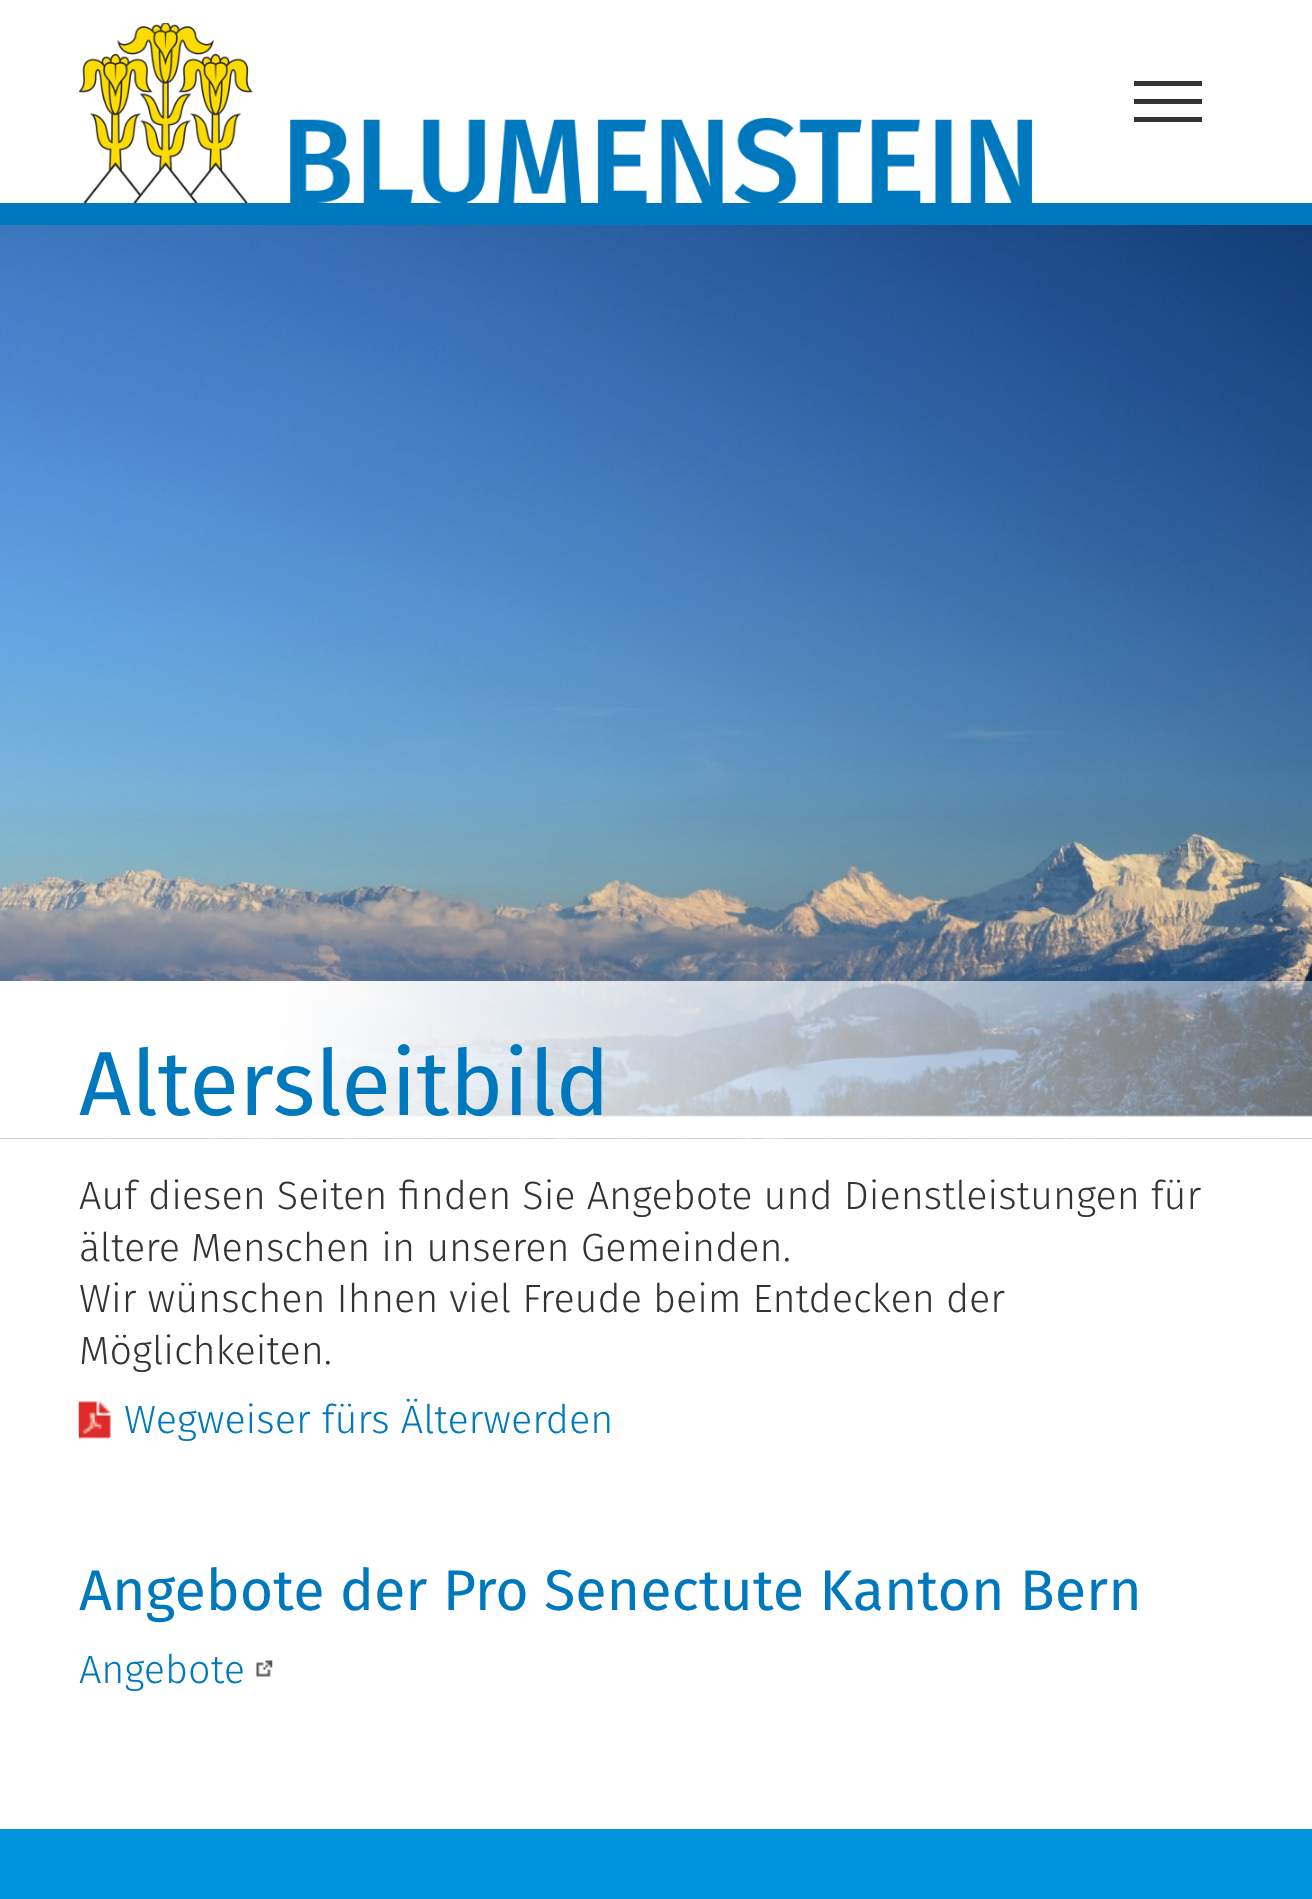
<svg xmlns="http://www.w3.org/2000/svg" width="1312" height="1899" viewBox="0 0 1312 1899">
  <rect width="100%" height="100%" fill="rgb(255,255,255)"/>
  <image x="79" y="23" width="954" height="180" href="pic1.png"/>
  <rect x="1134" y="99" width="68" height="5" fill="rgb(51,51,51)"/>
  <rect x="1134" y="81" width="68" height="5" fill="rgb(51,51,51)"/>
  <rect x="1134" y="117" width="68" height="5" fill="rgb(51,51,51)"/>
  <rect x="0" y="203" width="1312" height="22" fill="rgb(0,120,190)"/>
  <image x="0" y="225" width="1312" height="914" href="pic2.png"/>
  <rect x="0" y="981" width="1312" height="158" fill="rgba(255,255,255,0.2)"/>
  <image x="0" y="981" width="1312" height="158" href="pic3.png"/>
  <text x="79" y="1115" font-family="Fira Sans" font-size="91" fill="rgb(0,120,190)">Altersleitbild</text>
  <g font-family="Fira Sans" font-size="39.6" font-weight="300" fill="rgb(51,51,51)">
    <text>
      <tspan x="79" y="1209">Auf diesen Seiten finden Sie Angebote und Dienstleistungen für</tspan>
      <tspan x="79" y="1261">ältere Menschen in unseren Gemeinden.</tspan>
      <tspan x="79" y="1312">Wir wünschen Ihnen viel Freude beim Entdecken der</tspan>
      <tspan x="79" y="1364">Möglichkeiten.</tspan>
    </text>
  </g>
  <image x="78" y="1401" width="33" height="38" href="pic4.png"/>
  <text x="124" y="1433" font-family="Fira Sans" font-size="39.6" font-weight="300" fill="rgb(0,120,190)">Wegweiser fürs Älterwerden</text>
  <text x="79" y="1610" font-family="Fira Sans" font-size="57.4" fill="rgb(0,120,190)">Angebote der Pro Senectute Kanton Bern</text>
  <text x="79" y="1683" font-family="Fira Sans" font-size="39.6" font-weight="300" fill="rgb(0,120,190)">Angebote</text>
  <image x="256" y="1660" width="17" height="17" href="pic5.png"/>
  <rect x="0" y="1829" width="1312" height="70" fill="rgb(0,147,221)"/>
</svg>
